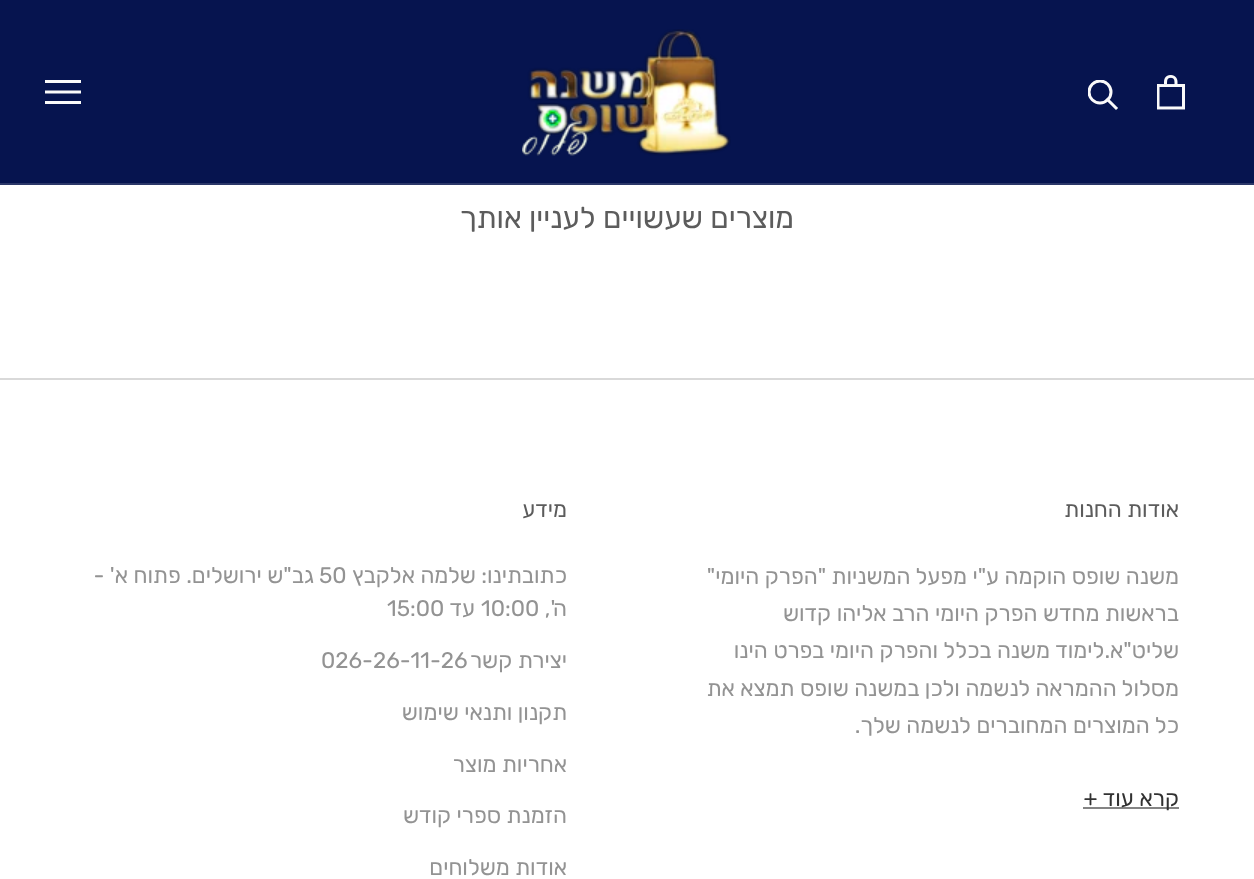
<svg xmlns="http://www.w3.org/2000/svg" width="1254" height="879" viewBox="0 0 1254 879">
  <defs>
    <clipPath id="clip1"><rect x="1088" y="80" width="31" height="31"/></clipPath>
  </defs>
  <rect width="100%" height="100%" fill="rgb(255,255,255)"/>
  <rect x="0" y="0" width="1254" height="183" fill="rgb(6,20,79)"/>
  <rect x="0" y="183" width="1254" height="2" fill="rgb(43,55,105)"/>
  <image x="1157" y="75" width="28" height="35" href="pic1.png"/>
  <path d="M1116 108L1107.5 99.5" fill="none" stroke="rgb(250,250,250)" stroke-width="3" stroke-linecap="square"/>
  <g clip-path="url(#clip1)">
    <circle cx="1100" cy="92" r="11" fill="none" stroke="rgb(250,250,250)" stroke-width="3"/>
  </g>
  <image x="522" y="29" width="209" height="127" href="pic2.png"/>
  <path d="M45 104V101H81V104ZM45 90.5H81V93.5H45ZM45 80H81V83H45Z" fill="rgb(250,250,250)"/>
  <text x="794" y="228" font-family="Rubik" font-size="30" font-weight="300" direction="rtl" fill="rgb(92,92,92)">מוצרים שעשויים לעניין אותך</text>
  <rect x="0" y="378" width="1254" height="2" fill="rgb(217,217,217)"/>
  <text x="1179" y="517" font-family="Rubik" font-size="22.5" font-weight="300" direction="rtl" fill="rgb(92,92,92)">אודות החנות</text>
  <g font-family="Rubik" font-size="22.5" font-weight="300" direction="rtl" fill="rgb(147,147,147)">
    <text>
      <tspan x="1179" y="584">משנה שופס הוקמה ע"י מפעל המשניות "הפרק היומי"</tspan>
      <tspan x="1179" y="621">בראשות מחדש הפרק היומי הרב אליהו קדוש</tspan>
      <tspan x="1179" y="658" word-spacing="0.25">שליט"א.לימוד משנה בכלל והפרק היומי בפרט הינו</tspan>
      <tspan x="1179" y="696">מסלול ההמראה לנשמה ולכן במשנה שופס תמצא את</tspan>
      <tspan x="1179" y="733">כל המוצרים המחוברים לנשמה שלך.</tspan>
    </text>
  </g>
  <rect x="1083" y="807" width="96" height="2" fill="rgb(132,132,132)"/>
  <text x="1179" y="806" word-spacing="0.25" font-family="Rubik" font-size="22.5" font-weight="300" direction="rtl" fill="rgb(50,50,50)">קרא עוד +</text>
  <text x="567" y="517" font-family="Rubik" font-size="22.5" font-weight="300" direction="rtl" fill="rgb(92,92,92)">מידע</text>
  <text x="567" y="583" font-family="Rubik" font-size="22.5" font-weight="300" direction="rtl" fill="rgb(147,147,147)">כתובתינו: שלמה אלקבץ</text>
  <text x="319" y="583" font-family="Rubik" font-size="22.5" font-weight="300" fill="rgb(147,147,147)">50</text>
  <g font-family="Rubik" font-size="22.5" font-weight="300" direction="rtl" fill="rgb(147,147,147)">
    <text x="314" y="583">גב"ש ירושלים. פתוח א' -</text>
    <text x="567" y="616">ה',</text>
  </g>
  <text x="481" y="616" font-family="Rubik" font-size="22.5" font-weight="300" fill="rgb(147,147,147)">10:00</text>
  <text x="475" y="616" font-family="Rubik" font-size="22.5" font-weight="300" direction="rtl" fill="rgb(147,147,147)">עד</text>
  <text x="387" y="616" font-family="Rubik" font-size="22.5" font-weight="300" fill="rgb(147,147,147)">15:00</text>
  <text x="567" y="668" word-spacing="0.25" font-family="Rubik" font-size="22.5" font-weight="300" direction="rtl" fill="rgb(147,147,147)">יצירת קשר</text>
  <text x="321" y="668" font-family="Rubik" font-size="22.5" font-weight="300" fill="rgb(147,147,147)">026-26-11-26</text>
  <g font-family="Rubik" font-size="22.5" font-weight="300" direction="rtl" fill="rgb(147,147,147)">
    <text x="567" y="720">תקנון ותנאי שימוש</text>
    <text x="567" y="772">אחריות מוצר</text>
    <text x="567" y="823">הזמנת ספרי קודש</text>
    <text x="567" y="875">אודות משלוחים</text>
  </g>
</svg>
